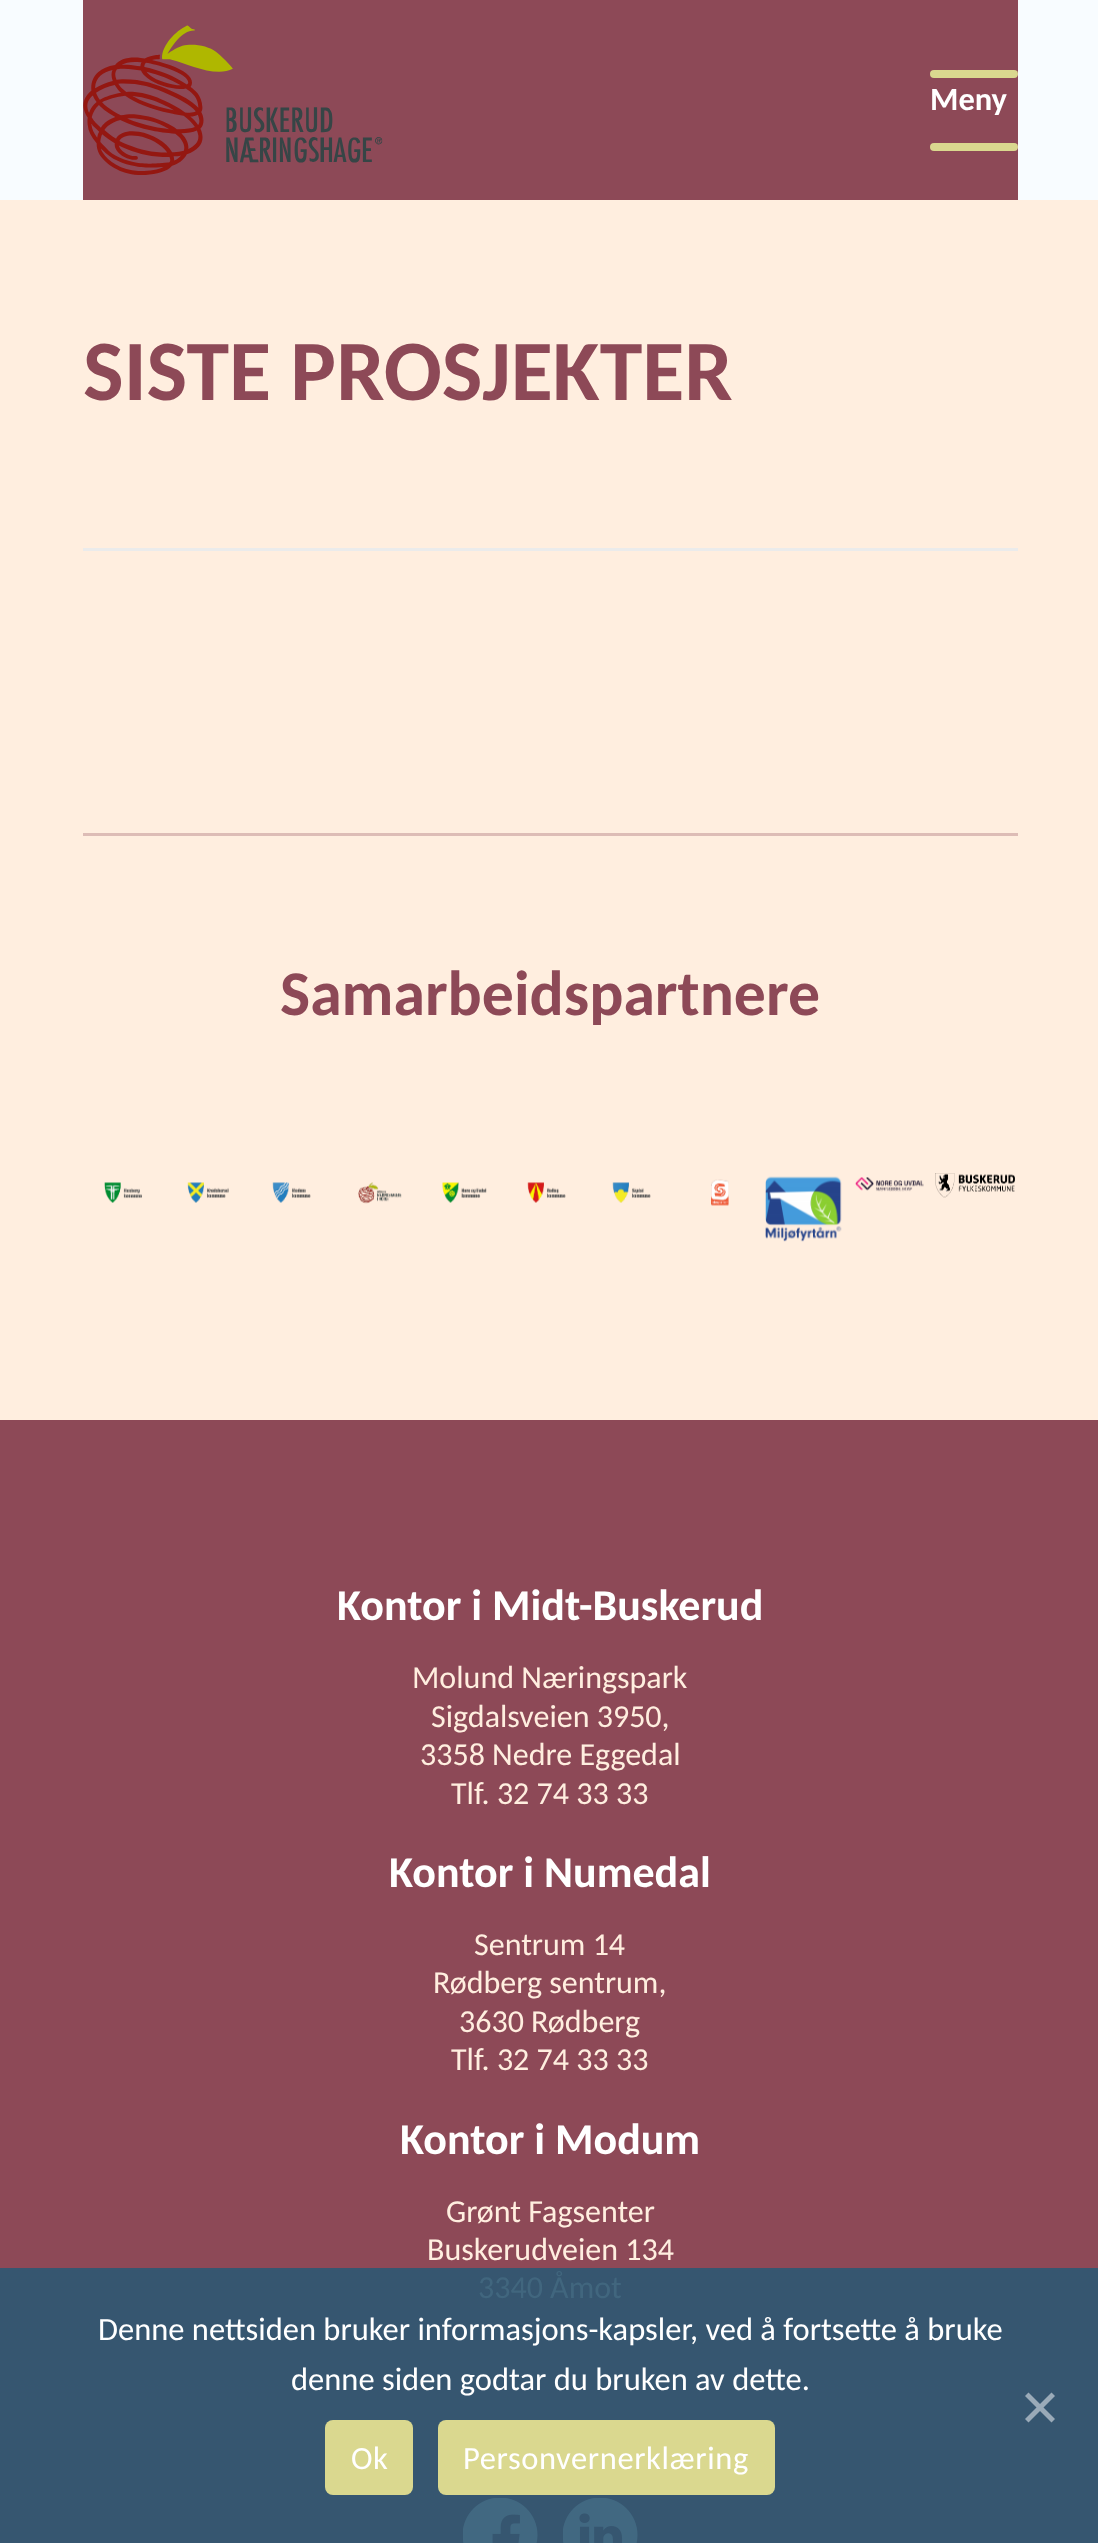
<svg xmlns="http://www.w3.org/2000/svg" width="1098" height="2543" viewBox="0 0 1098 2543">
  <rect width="100%" height="100%" fill="rgb(255,238,223)"/>
  <rect x="0" y="0" width="1098" height="200" fill="rgb(248,252,255)"/>
  <rect x="83" y="0" width="935" height="200" fill="rgb(141,73,87)"/>
  <image x="83" y="25" width="300" height="150" href="pic1.png"/>
  <rect x="930" y="70" width="88" height="8" rx="4" fill="rgb(218,216,143)"/>
  <rect x="930" y="143" width="88" height="8" rx="4" fill="rgb(218,216,143)"/>
  <text x="930" y="110" font-family="Carlito" font-size="32.5" font-weight="bold" fill="rgb(255,255,255)">Meny</text>
  <text x="83" y="400" font-family="Carlito" font-size="86" font-weight="bold" fill="rgb(141,73,87)">SISTE PROSJEKTER</text>
  <rect x="83" y="548" width="935" height="3" fill="rgb(235,235,235)"/>
  <rect x="83" y="833" width="935" height="3" fill="rgb(221,188,182)"/>
  <text x="280" y="1015" font-family="Carlito" font-size="63.75" font-weight="bold" fill="rgb(141,73,87)">Samarbeidspartnere</text>
  <image x="104" y="1182" width="38" height="21" href="pic2.png"/>
  <image x="187" y="1182" width="42" height="21" href="pic3.png"/>
  <image x="272" y="1182" width="39" height="21" href="pic4.png"/>
  <image x="358" y="1182" width="44" height="22" href="pic5.png"/>
  <image x="442" y="1182" width="45" height="21" href="pic6.png"/>
  <image x="527" y="1182" width="39" height="21" href="pic7.png"/>
  <image x="612" y="1182" width="39" height="21" href="pic8.png"/>
  <image x="711" y="1179" width="18" height="27" href="pic9.png"/>
  <image x="765" y="1176" width="77" height="66" href="pic10.png"/>
  <image x="855" y="1177" width="69" height="15" href="pic11.png"/>
  <image x="935" y="1173" width="80" height="25" href="pic12.png"/>
  <rect x="0" y="1420" width="1098" height="848" fill="rgb(141,73,87)"/>
  <rect x="0" y="2268" width="1098" height="275" fill="rgb(54,86,112)"/>
  <text x="337" y="1620" font-family="Carlito" font-size="44" font-weight="bold" fill="rgb(255,255,255)">Kontor i Midt-Buskerud</text>
  <g font-family="Carlito" font-size="32" fill="rgb(255,238,223)">
    <text x="412" y="1688">Molund Næringspark</text>
    <text x="431" y="1727">Sigdalsveien 3950,</text>
    <text x="420" y="1765">3358 Nedre Eggedal</text>
    <text x="451" y="1804">Tlf. 32 74 33 33</text>
  </g>
  <text x="389" y="1887" font-family="Carlito" font-size="44" font-weight="bold" fill="rgb(255,255,255)">Kontor i Numedal</text>
  <g font-family="Carlito" font-size="32" fill="rgb(255,238,223)">
    <text x="474" y="1955">Sentrum 14</text>
    <text x="433" y="1993">Rødberg sentrum,</text>
    <text x="459" y="2032">3630 Rødberg</text>
    <text x="451" y="2070">Tlf. 32 74 33 33</text>
  </g>
  <text x="400" y="2154" font-family="Carlito" font-size="44" font-weight="bold" fill="rgb(255,255,255)">Kontor i Modum</text>
  <g font-family="Carlito" font-size="32" fill="rgb(255,238,223)">
    <text x="446" y="2222">Grønt Fagsenter</text>
    <text x="427" y="2260">Buskerudveien 134</text>
  </g>
  <text x="478" y="2298" font-family="Carlito" font-size="32" fill="rgb(65,102,126)">3340 Åmot</text>
  <image x="463" y="2498" width="75" height="45" href="pic13.png"/>
  <image x="563" y="2498" width="75" height="45" href="pic14.png"/>
  <g font-family="Carlito" font-size="32.5" fill="rgb(255,255,255)">
    <text x="98" y="2340">Denne nettsiden bruker informasjons-kapsler, ved å fortsette å bruke</text>
    <text x="291" y="2390">denne siden godtar du bruken av dette.</text>
  </g>
  <path d="M1051.5 2392.5L1055 2396L1028.5 2422.5L1025 2419Z" fill="rgb(154,170,184)"/>
  <path d="M1025 2396L1028.5 2392.5L1055 2419L1051.5 2422.5Z" fill="rgb(154,170,184)"/>
  <rect x="325" y="2420" width="88" height="75" rx="8" fill="rgb(218,216,143)"/>
  <text x="351" y="2469" font-family="Carlito" font-size="32.5" letter-spacing="0.6" fill="rgb(255,255,255)">Ok</text>
  <rect x="438" y="2420" width="337" height="75" rx="8" fill="rgb(218,216,143)"/>
  <text x="463" y="2469" font-family="Carlito" font-size="32.5" letter-spacing="0.6" fill="rgb(255,255,255)">Personvernerklæring</text>
</svg>
